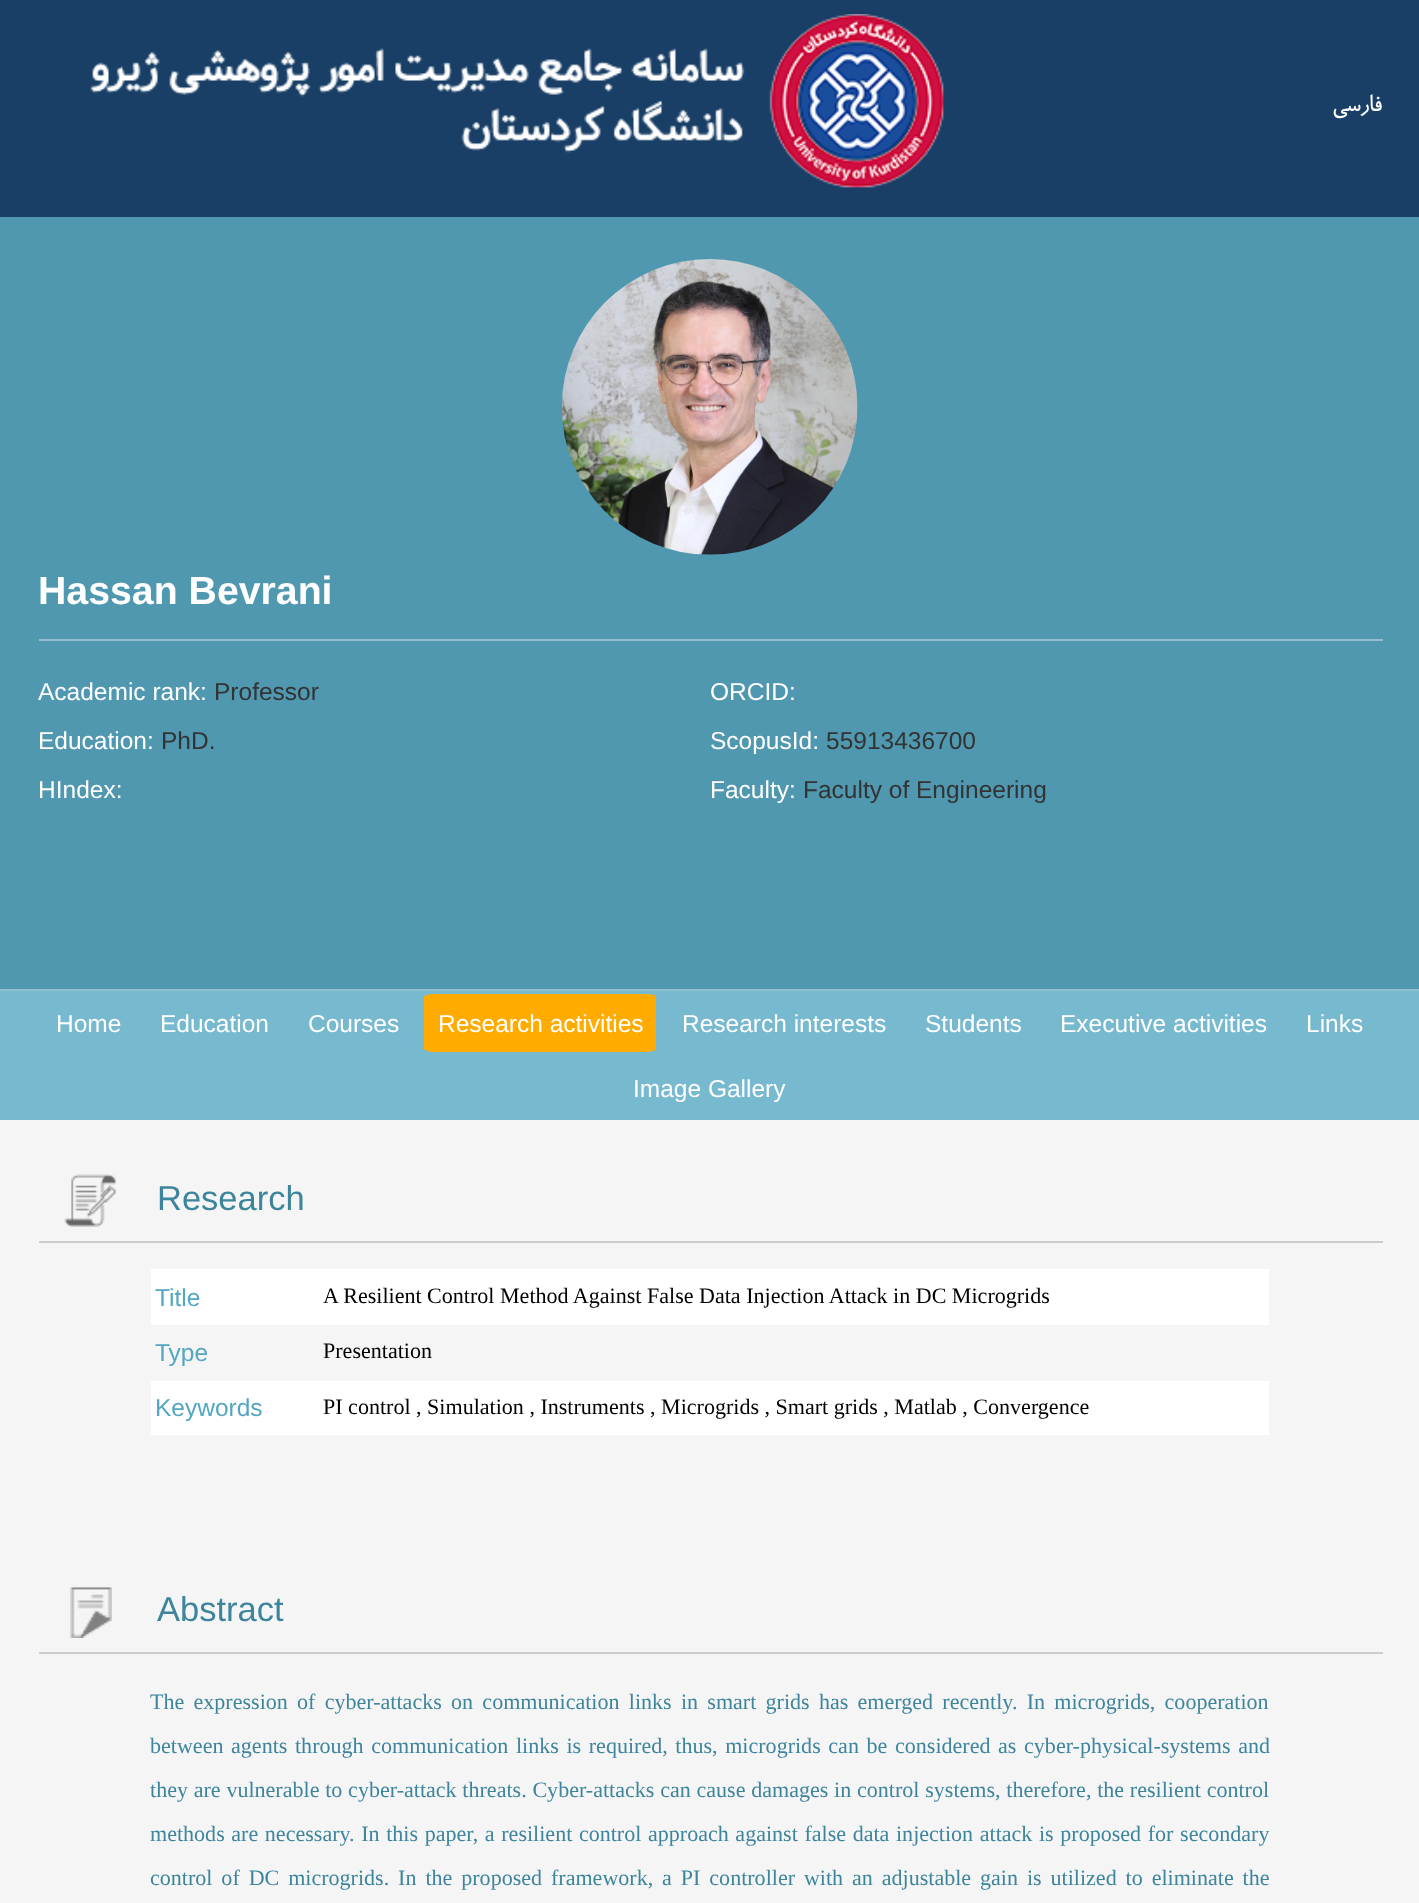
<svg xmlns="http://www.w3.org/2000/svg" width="1419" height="1903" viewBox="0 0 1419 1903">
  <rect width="100%" height="100%" fill="rgb(25,63,102)"/>
  <image x="90" y="14" width="854" height="174" href="pic1.png"/>
  <text x="1382" y="111" font-family="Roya" font-size="27" direction="rtl" fill="rgb(255,255,255)">فارسی</text>
  <rect x="0" y="217" width="1419" height="772" fill="rgb(79,152,176)"/>
  <image x="561" y="259" width="297" height="296" href="pic2.png"/>
  <rect x="39" y="639" width="1344" height="2" fill="rgb(146,191,206)"/>
  <text x="38" y="604" font-family="Liberation Sans" font-size="39.25" font-weight="bold" fill="rgb(255,255,255)">Hassan Bevrani</text>
  <text x="38" y="700" font-family="Liberation Sans" font-size="24.5" fill="rgb(255,255,255)">Academic rank:</text>
  <text x="214" y="700" font-family="Liberation Sans" font-size="24.5" fill="rgb(51,51,51)">Professor</text>
  <g font-family="Liberation Sans" font-size="24.5" fill="rgb(255,255,255)">
    <text x="710" y="700">ORCID:</text>
    <text x="38" y="749">Education:</text>
  </g>
  <text x="161" y="749" font-family="Liberation Sans" font-size="24.5" fill="rgb(51,51,51)">PhD.</text>
  <text x="710" y="749" font-family="Liberation Sans" font-size="24.5" fill="rgb(255,255,255)">ScopusId:</text>
  <text x="826" y="749" font-family="Liberation Sans" font-size="24.5" fill="rgb(51,51,51)">55913436700</text>
  <g font-family="Liberation Sans" font-size="24.5" fill="rgb(255,255,255)">
    <text x="38" y="798">HIndex:</text>
    <text x="710" y="798">Faculty:</text>
  </g>
  <text x="803" y="798" font-family="Liberation Sans" font-size="24.5" fill="rgb(51,51,51)">Faculty of Engineering</text>
  <rect x="0" y="991" width="1419" height="129" fill="rgb(119,185,207)"/>
  <rect x="0" y="989" width="1419" height="2" fill="rgb(146,191,206)"/>
  <g font-family="Liberation Sans" font-size="24.5" fill="rgb(255,255,255)">
    <text x="56" y="1032">Home</text>
    <text x="160" y="1032">Education</text>
    <text x="308" y="1032">Courses</text>
  </g>
  <path d="M435 994H645C651 994 656 995 656 997V1049C656 1050 651 1052 645 1052H435C429 1052 424 1050 424 1049V997C424 995 429 994 435 994Z" fill="rgb(255,171,0)"/>
  <g font-family="Liberation Sans" font-size="24.5" fill="rgb(255,255,255)">
    <text x="438" y="1032">Research activities</text>
    <text x="682" y="1032">Research interests</text>
    <text x="925" y="1032">Students</text>
    <text x="1060" y="1032">Executive activities</text>
    <text x="1306" y="1032">Links</text>
    <text x="633" y="1097">Image Gallery</text>
  </g>
  <rect x="0" y="1120" width="1419" height="783" fill="rgb(245,245,245)"/>
  <rect x="39" y="1241" width="1344" height="2" fill="rgb(204,204,204)"/>
  <image x="64" y="1174" width="52" height="53" href="pic3.png"/>
  <text x="157" y="1210" font-family="Liberation Sans" font-size="34.5" fill="rgb(61,133,156)">Research</text>
  <rect x="151" y="1269" width="1118" height="56" fill="rgb(255,255,255)"/>
  <text x="155" y="1306" font-family="Liberation Sans" font-size="24.5" fill="rgb(84,166,194)">Title</text>
  <text x="323" y="1303" font-family="Liberation Serif" font-size="22.05" fill="rgb(0,0,0)">A Resilient Control Method Against False Data Injection Attack in DC Microgrids</text>
  <text x="155" y="1361" font-family="Liberation Sans" font-size="24.5" fill="rgb(84,166,194)">Type</text>
  <text x="323" y="1358" font-family="Liberation Serif" font-size="22.05" fill="rgb(0,0,0)">Presentation</text>
  <rect x="151" y="1381" width="1118" height="54" fill="rgb(255,255,255)"/>
  <text x="155" y="1416" font-family="Liberation Sans" font-size="24.5" fill="rgb(84,166,194)">Keywords</text>
  <text x="323" y="1414" font-family="Liberation Serif" font-size="22.05" fill="rgb(0,0,0)">PI control , Simulation , Instruments , Microgrids , Smart grids , Matlab , Convergence</text>
  <rect x="39" y="1652" width="1344" height="2" fill="rgb(204,204,204)"/>
  <image x="70" y="1587" width="42" height="51" href="pic4.png"/>
  <text x="157" y="1621" font-family="Liberation Sans" font-size="34.5" fill="rgb(61,133,156)">Abstract</text>
  <g font-family="Liberation Serif" font-size="22.05" fill="rgb(61,133,156)">
    <text>
      <tspan x="150" y="1709" word-spacing="3.75">The expression of cyber-attacks on communication links in smart grids has emerged recently. In microgrids, cooperation</tspan>
      <tspan x="150" y="1753" word-spacing="2.1">between agents through communication links is required, thus, microgrids can be considered as cyber-physical-systems and</tspan>
      <tspan x="150" y="1797" word-spacing="0.25">they are vulnerable to cyber-attack threats. Cyber-attacks can cause damages in control systems, therefore, the resilient control</tspan>
      <tspan x="150" y="1841" word-spacing="1.1">methods are necessary. In this paper, a resilient control approach against false data injection attack is proposed for secondary</tspan>
      <tspan x="150" y="1885" word-spacing="3.4">control of DC microgrids. In the proposed framework, a PI controller with an adjustable gain is utilized to eliminate the</tspan>
    </text>
  </g>
</svg>
